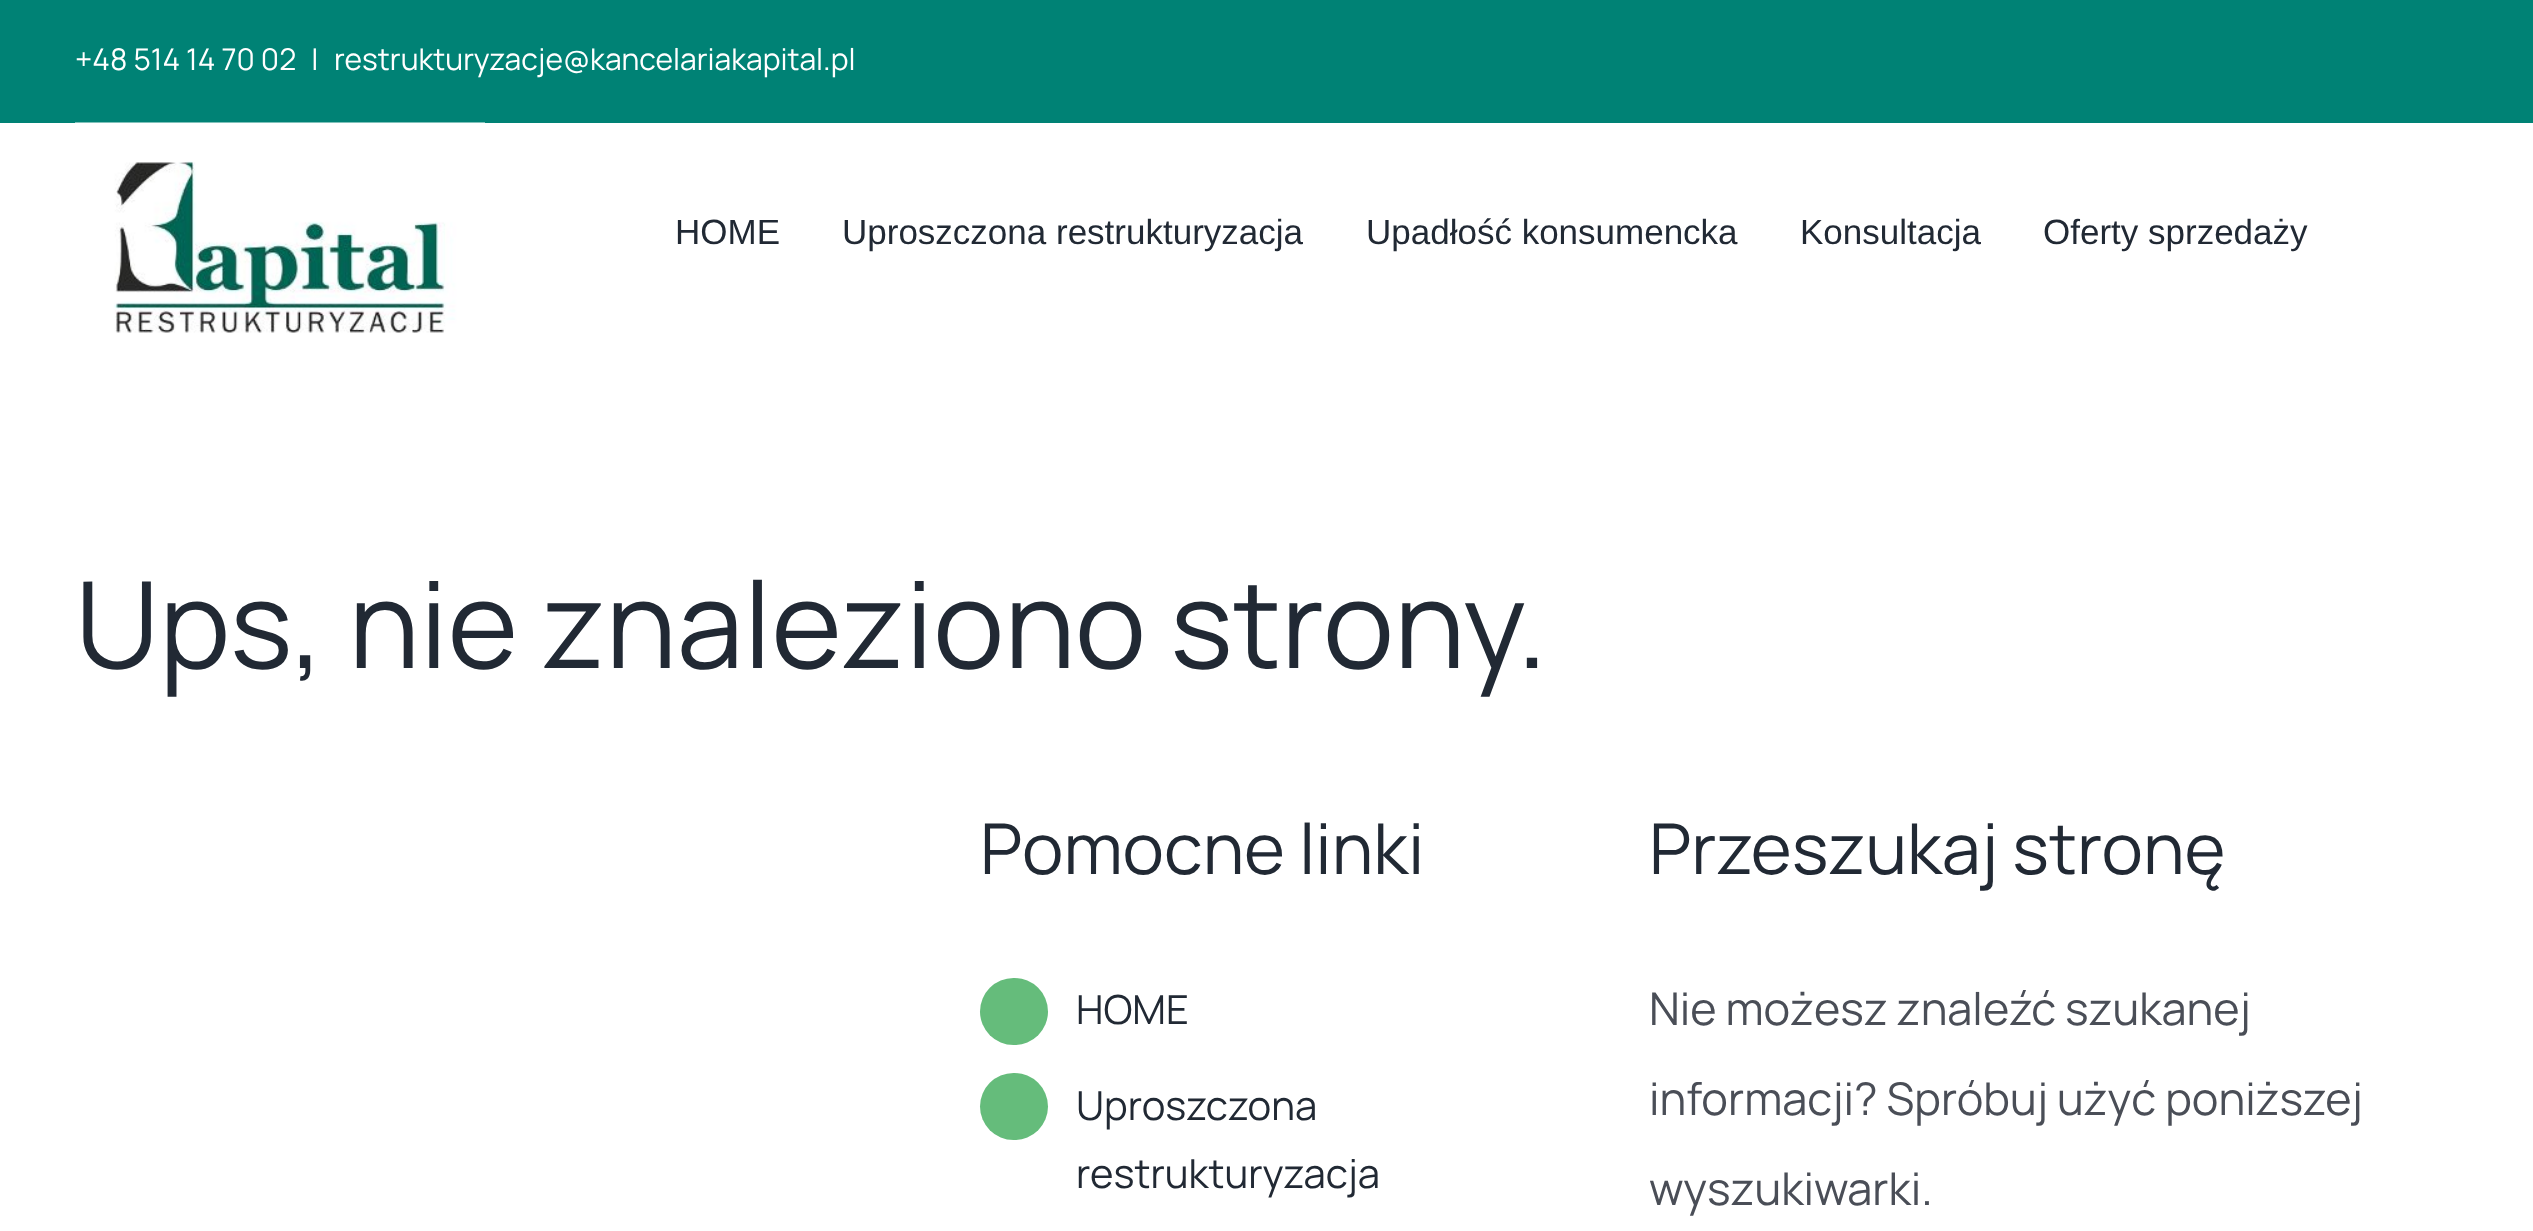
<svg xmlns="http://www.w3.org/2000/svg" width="2533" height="1231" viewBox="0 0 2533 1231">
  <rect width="100%" height="100%" fill="rgb(255,255,255)"/>
  <rect x="0" y="0" width="2533" height="123" fill="rgb(0,130,117)"/>
  <g font-family="Manrope" font-size="30" fill="rgb(255,255,255)">
    <text x="75" y="70">+48 514 14 70 02</text>
    <text x="311" y="70">|</text>
    <text x="334" y="70">restrukturyzacje@kancelariakapital.pl</text>
  </g>
  <image x="75" y="122" width="410" height="211" href="pic1.png"/>
  <g font-family="Liberation Sans" font-size="35" fill="rgb(33,41,52)">
    <text x="675" y="244">HOME</text>
    <text x="842" y="244">Uproszczona restrukturyzacja</text>
    <text x="1366" y="244">Upadłość konsumencka</text>
    <text x="1800" y="244">Konsultacja</text>
    <text x="2043" y="244">Oferty sprzedaży</text>
  </g>
  <text x="75" y="668" font-family="Manrope" font-size="120" fill="rgb(33,41,52)">Ups, nie znaleziono strony.</text>
  <text x="980" y="874" font-family="Manrope" font-size="70" fill="rgb(33,41,52)">Pomocne linki</text>
  <rect x="980" y="978" width="68" height="67" rx="33.5" fill="rgb(101,188,123)"/>
  <text x="1076" y="1024" font-family="Manrope" font-size="40" fill="rgb(33,41,52)">HOME</text>
  <rect x="980" y="1073" width="68" height="67" rx="33.5" fill="rgb(101,188,123)"/>
  <g font-family="Manrope" font-size="40" fill="rgb(33,41,52)">
    <text>
      <tspan x="1076" y="1120">Uproszczona</tspan>
      <tspan x="1076" y="1188">restrukturyzacja</tspan>
    </text>
  </g>
  <text x="1649" y="874" font-family="Manrope" font-size="70" fill="rgb(33,41,52)">Przeszukaj stronę</text>
  <g font-family="Manrope" font-size="45" fill="rgb(74,78,87)">
    <text x="1649" y="1025">Nie możesz znaleźć szukanej</text>
    <text x="1649" y="1115">informacji? Spróbuj użyć poniższej</text>
    <text x="1649" y="1205">wyszukiwarki.</text>
  </g>
</svg>
